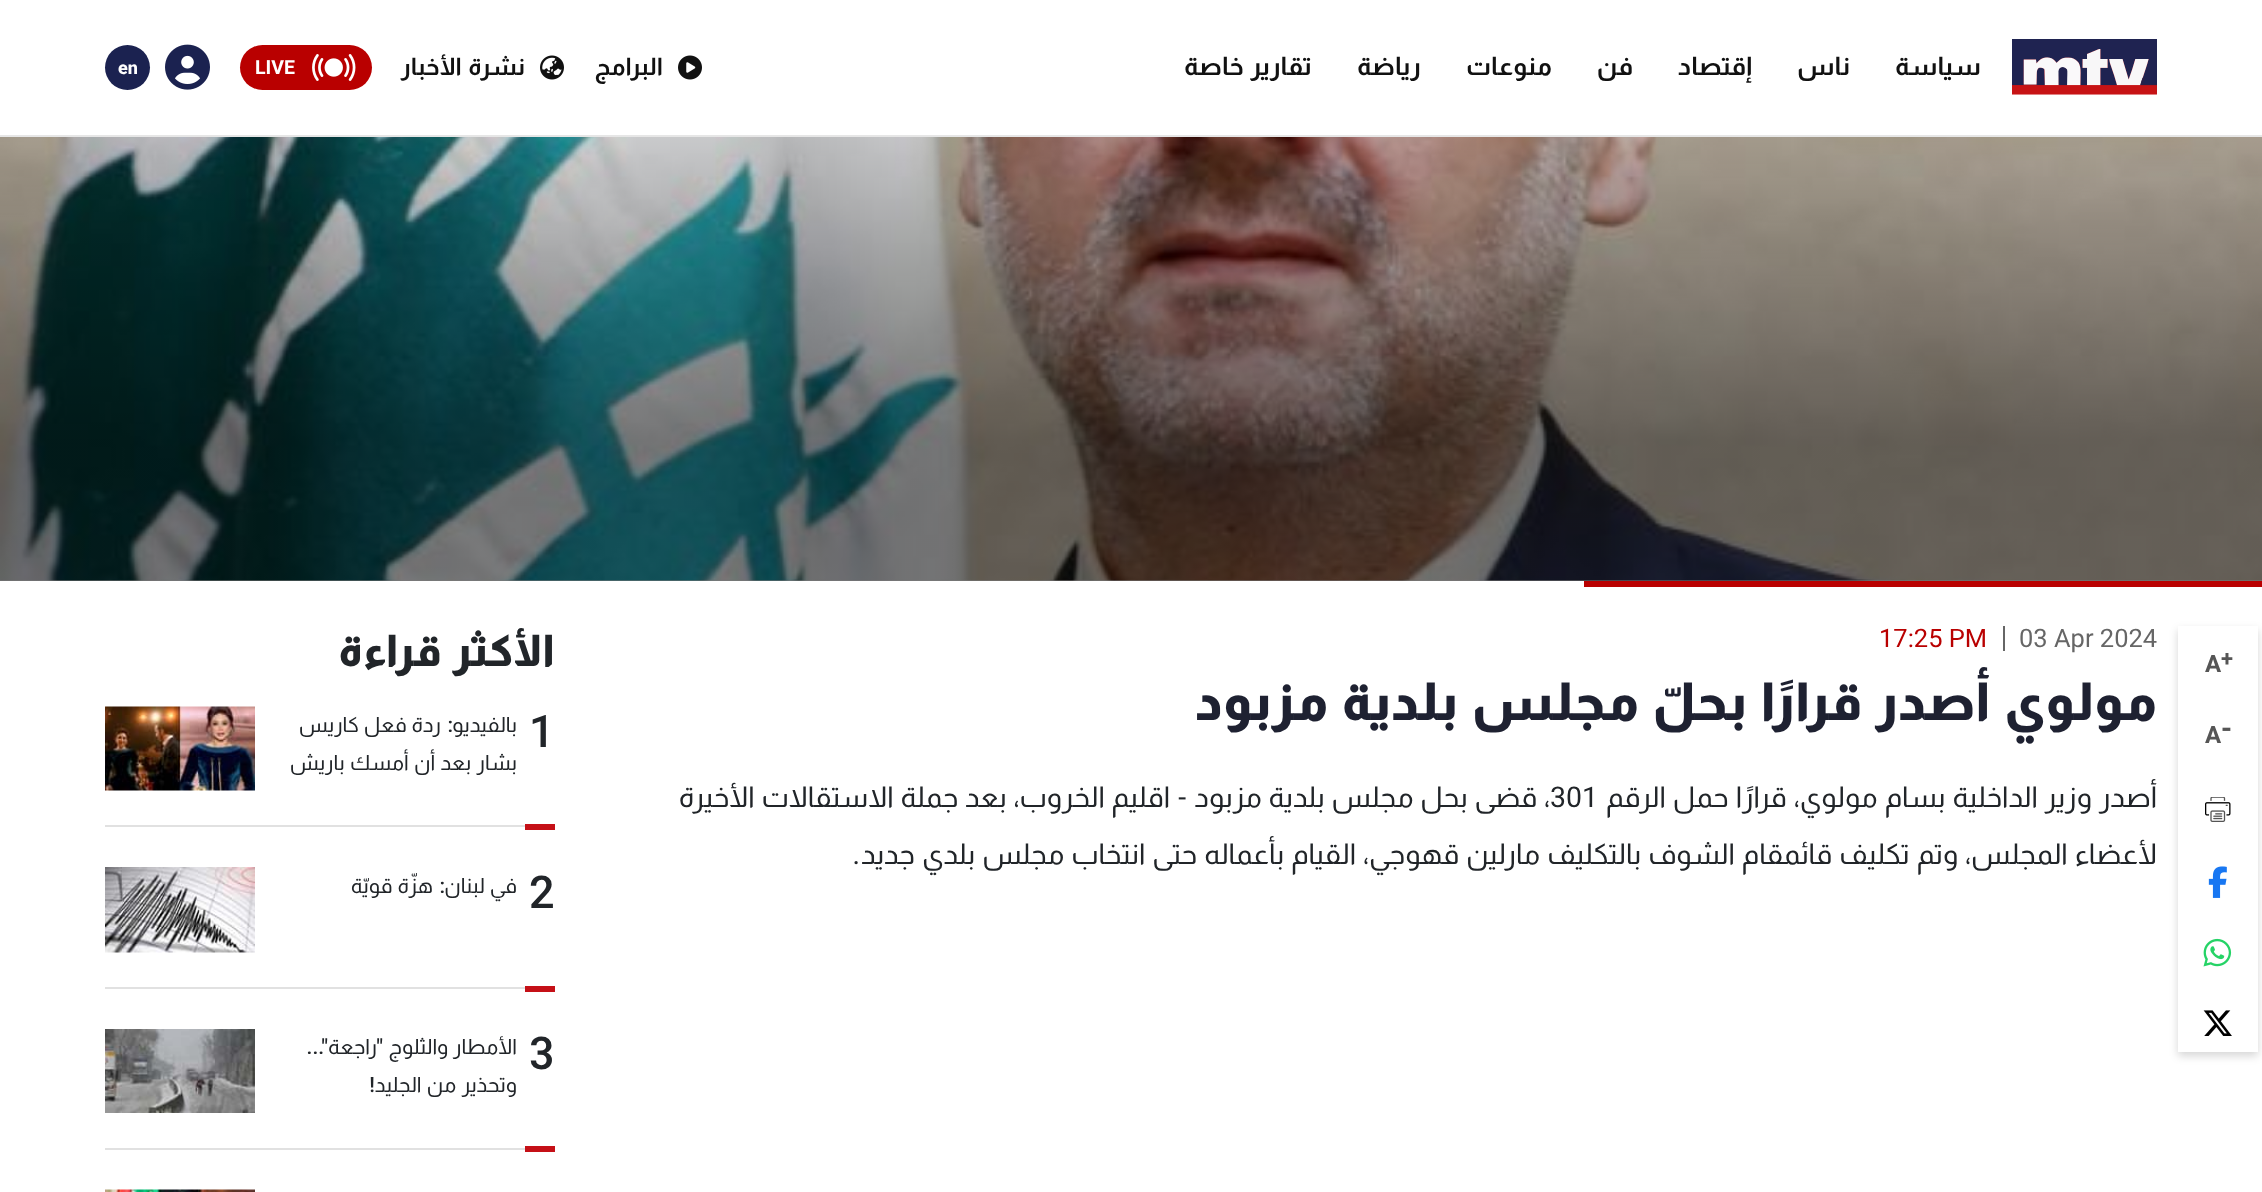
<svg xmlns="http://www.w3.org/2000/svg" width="2262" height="1192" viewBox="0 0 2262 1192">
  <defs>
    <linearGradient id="g1" gradientUnits="userSpaceOnUse" x1="1131" y1="-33" x2="1131" y2="581"><stop offset="0" stop-color="rgb(0,0,0)" stop-opacity="0"/><stop offset="0.77" stop-color="rgb(0,0,0)" stop-opacity="0.52"/></linearGradient>
  </defs>
  <rect width="100%" height="100%" fill="rgb(255,255,255)"/>
  <rect x="0" y="135" width="2262" height="2" fill="rgb(230,230,230)"/>
  <image x="2012" y="39" width="145" height="56" href="pic1.png"/>
  <g font-family="Almarai" font-size="25.5" font-weight="bold" direction="rtl" fill="rgb(17,17,17)">
    <text x="1981" y="75">سياسة</text>
    <text x="1850" y="75">ناس</text>
    <text x="1752" y="75">إقتصاد</text>
    <text x="1633" y="75">فن</text>
    <text x="1552" y="75">منوعات</text>
    <text x="1421" y="75">رياضة</text>
    <text x="1312" y="75" word-spacing="2">تقارير خاصة</text>
  </g>
  <image x="678" y="55" width="24" height="25" href="pic2.png"/>
  <text x="663" y="75" font-family="Almarai" font-size="24" font-weight="bold" direction="rtl" fill="rgb(17,17,17)">البرامج</text>
  <image x="540" y="55" width="24" height="25" href="pic3.png"/>
  <text x="525" y="75" word-spacing="2" font-family="Almarai" font-size="24" font-weight="bold" direction="rtl" fill="rgb(17,17,17)">نشرة الأخبار</text>
  <rect x="240" y="45" width="132" height="45" rx="22.5" fill="rgb(185,0,0)"/>
  <image x="312" y="54" width="44" height="27" href="pic4.png"/>
  <text x="255" y="74" font-family="Roboto" font-size="19.5" font-weight="bold" fill="rgb(255,255,255)">LIVE</text>
  <image x="165" y="44" width="45" height="46" href="pic5.png"/>
  <circle cx="127.5" cy="67.5" r="22.5" fill="rgb(27,34,80)"/>
  <text x="118" y="74" font-family="Roboto" font-size="18" font-weight="800" fill="rgb(255,255,255)">en</text>
  <image x="0" y="137" width="2262" height="444" href="pic6.png"/>
  <rect x="0" y="137" width="2262" height="444" fill="url(#g1)"/>
  <rect x="1584" y="581" width="678" height="6" fill="rgb(185,0,0)"/>
  <rect x="2178" y="630" width="80" height="426" fill="rgba(0,0,0,0.16)" filter="blur(4.5px)"/>
  <rect x="2178" y="626" width="80" height="426" fill="rgb(255,255,255)"/>
  <text x="2205" y="672" font-family="Roboto" font-size="24" font-weight="bold" fill="rgb(85,85,85)">A</text>
  <text x="2221" y="666" font-family="Roboto" font-size="22" font-weight="bold" fill="rgb(85,85,85)">+</text>
  <text x="2221" y="738" font-family="Roboto" font-size="28.5" font-weight="bold" fill="rgb(85,85,85)">-</text>
  <text x="2205" y="743" font-family="Roboto" font-size="24" font-weight="bold" fill="rgb(85,85,85)">A</text>
  <image x="2205" y="797" width="26" height="25" href="pic7.png"/>
  <image x="2208" y="866" width="19" height="32" href="pic8.png"/>
  <image x="2203" y="938" width="29" height="29" href="pic9.png"/>
  <image x="2203" y="1010" width="29" height="26" href="pic10.png"/>
  <rect x="2003" y="626" width="2" height="25" fill="rgb(102,102,102)"/>
  <text x="2019" y="647" font-family="Roboto" font-size="25.5" fill="rgb(102,102,102)">03 Apr 2024</text>
  <text x="1879" y="647" font-family="Roboto" font-size="25.5" fill="rgb(185,0,0)">17:25 PM</text>
  <text x="2157" y="720" word-spacing="3.5" font-family="Almarai" font-size="52.5" font-weight="800" direction="rtl" fill="rgb(30,33,49)">مولوي أصدر قرارًا بحلّ مجلس بلدية مزبود</text>
  <text x="2157" y="807" word-spacing="1.75" font-family="Almarai" font-size="28.5" direction="rtl" fill="rgb(33,37,41)">أصدر وزير الداخلية بسام مولوي، قرارًا حمل الرقم</text>
  <text x="1550" y="807" font-family="Roboto" font-size="28.5" fill="rgb(33,37,41)">301</text>
  <text x="1550" y="807" word-spacing="1.5" font-family="Almarai" font-size="28.5" direction="rtl" fill="rgb(33,37,41)">، قضى بحل مجلس بلدية مزبود</text>
  <text x="1186" y="807" font-family="Roboto" font-size="28.5" direction="rtl" fill="rgb(33,37,41)">-</text>
  <g font-family="Almarai" font-size="28.5" direction="rtl" fill="rgb(33,37,41)">
    <text x="1170" y="807" word-spacing="1.5">اقليم الخروب، بعد جملة الاستقالات الأخيرة</text>
    <text x="2157" y="864" word-spacing="1.75">لأعضاء المجلس، وتم تكليف قائمقام الشوف بالتكليف مارلين قهوجي، القيام بأعماله حتى انتخاب مجلس بلدي جديد</text>
  </g>
  <text x="860" y="864" font-family="Roboto" font-size="28.5" direction="rtl" fill="rgb(33,37,41)">.</text>
  <text x="555" y="666" word-spacing="3" font-family="Almarai" font-size="43.5" font-weight="800" direction="rtl" fill="rgb(33,37,41)">الأكثر قراءة</text>
  <rect x="105" y="825" width="420" height="2" fill="rgb(225,225,225)"/>
  <text x="529" y="747" font-family="Roboto" font-size="45" font-weight="500" fill="rgb(33,37,41)">1</text>
  <text x="517" y="732" font-family="Almarai" font-size="21" direction="rtl" fill="rgb(33,37,41)">بالفيديو</text>
  <text x="453" y="732" font-family="Roboto" font-size="21" font-weight="500" direction="rtl" fill="rgb(33,37,41)">:</text>
  <g font-family="Almarai" font-size="21" direction="rtl" fill="rgb(33,37,41)">
    <text x="441" y="732" word-spacing="1">ردة فعل كاريس</text>
    <text x="517" y="770" word-spacing="1.5">بشار بعد أن أمسك باريش</text>
  </g>
  <image x="105" y="706" width="150" height="85" href="pic11.png"/>
  <rect x="525" y="824" width="30" height="6" fill="rgb(197,16,23)"/>
  <rect x="105" y="987" width="420" height="2" fill="rgb(225,225,225)"/>
  <text x="529" y="908" font-family="Roboto" font-size="45" font-weight="500" fill="rgb(33,37,41)">2</text>
  <text x="517" y="893" word-spacing="1" font-family="Almarai" font-size="21" direction="rtl" fill="rgb(33,37,41)">في لبنان</text>
  <text x="445" y="893" font-family="Roboto" font-size="21" font-weight="500" direction="rtl" fill="rgb(33,37,41)">:</text>
  <text x="433" y="893" word-spacing="1" font-family="Almarai" font-size="21" direction="rtl" fill="rgb(33,37,41)">هزّة قويّة</text>
  <image x="105" y="867" width="150" height="86" href="pic12.png"/>
  <rect x="525" y="986" width="30" height="6" fill="rgb(197,16,23)"/>
  <rect x="105" y="1148" width="420" height="2" fill="rgb(225,225,225)"/>
  <text x="529" y="1069" font-family="Roboto" font-size="45" font-weight="500" fill="rgb(33,37,41)">3</text>
  <text x="517" y="1054" word-spacing="1" font-family="Almarai" font-size="21" direction="rtl" fill="rgb(33,37,41)">الأمطار والثلوج</text>
  <text x="383" y="1054" font-family="Roboto" font-size="21" font-weight="500" direction="rtl" fill="rgb(33,37,41)">"</text>
  <text x="377" y="1054" font-family="Almarai" font-size="21" direction="rtl" fill="rgb(33,37,41)">راجعة</text>
  <text x="328" y="1054" font-family="Roboto" font-size="21" font-weight="500" direction="rtl" fill="rgb(33,37,41)">"...</text>
  <text x="517" y="1092" word-spacing="1.5" font-family="Almarai" font-size="21" direction="rtl" fill="rgb(33,37,41)">وتحذير من الجليد</text>
  <text x="375" y="1092" font-family="Roboto" font-size="21" font-weight="500" direction="rtl" fill="rgb(33,37,41)">!</text>
  <image x="105" y="1029" width="150" height="84" href="pic13.png"/>
  <rect x="525" y="1146" width="30" height="6" fill="rgb(197,16,23)"/>
  <image x="105" y="1189" width="150" height="3" href="pic14.png"/>
</svg>
